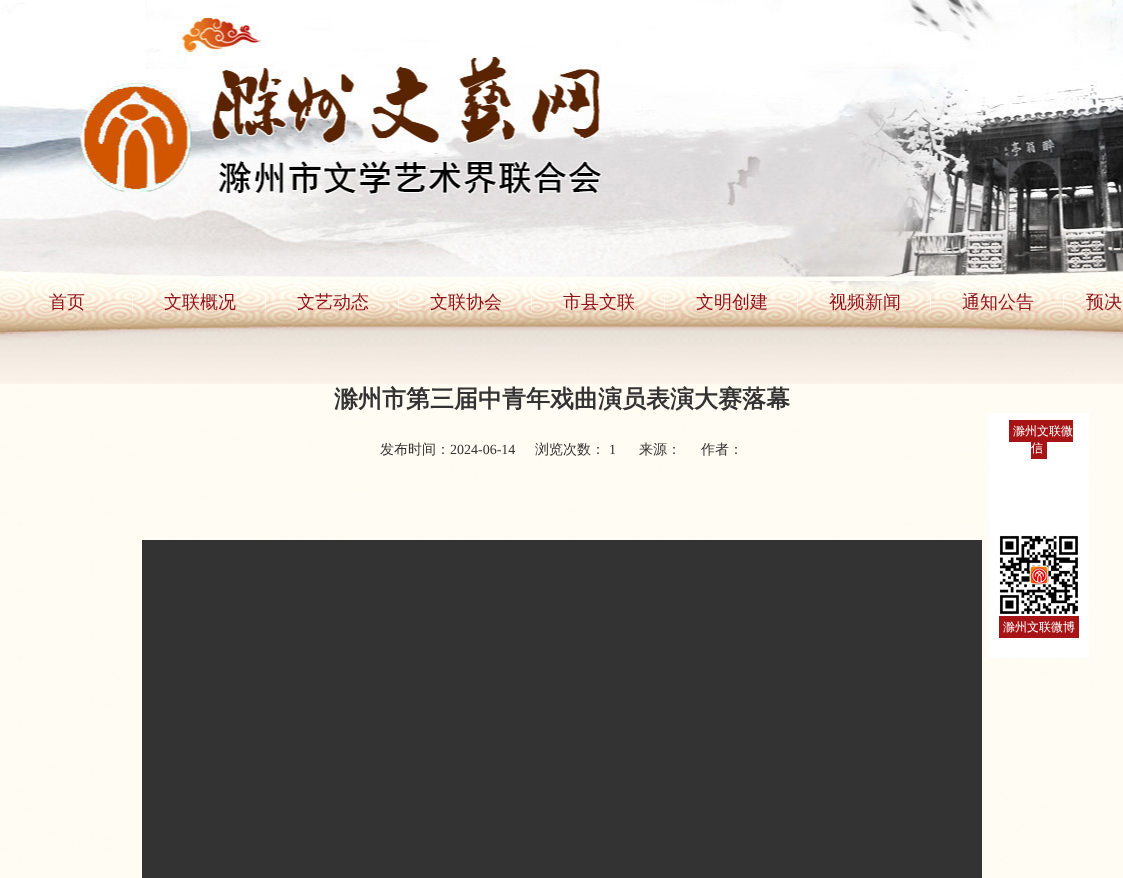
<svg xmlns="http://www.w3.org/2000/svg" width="1123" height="878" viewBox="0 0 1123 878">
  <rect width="100%" height="100%" fill="rgb(255,255,255)"/>
  <image x="0" y="0" width="1123" height="384" href="pic1.png"/>
  <image x="0" y="281" width="1123" height="66" href="pic2.png"/>
  <image x="132" y="292" width="1" height="21" href="pic3.png"/>
  <text x="49" y="308" font-family="WenQuanYi Zen Hei" font-size="18" font-weight="500" fill="rgb(142,18,28)">首页</text>
  <image x="265" y="292" width="1" height="21" href="pic4.png"/>
  <text x="164" y="308" font-family="WenQuanYi Zen Hei" font-size="18" font-weight="500" fill="rgb(142,18,28)">文联概况</text>
  <image x="398" y="294" width="1" height="19" href="pic5.png"/>
  <text x="297" y="308" font-family="WenQuanYi Zen Hei" font-size="18" font-weight="500" fill="rgb(142,18,28)">文艺动态</text>
  <image x="531" y="294" width="1" height="19" href="pic6.png"/>
  <text x="430" y="308" font-family="WenQuanYi Zen Hei" font-size="18" font-weight="500" fill="rgb(142,18,28)">文联协会</text>
  <image x="664" y="293" width="1" height="20" href="pic7.png"/>
  <text x="563" y="308" font-family="WenQuanYi Zen Hei" font-size="18" font-weight="500" fill="rgb(142,18,28)">市县文联</text>
  <image x="797" y="292" width="1" height="21" href="pic8.png"/>
  <text x="696" y="308" font-family="WenQuanYi Zen Hei" font-size="18" font-weight="500" fill="rgb(142,18,28)">文明创建</text>
  <image x="930" y="292" width="1" height="21" href="pic9.png"/>
  <text x="829" y="308" font-family="WenQuanYi Zen Hei" font-size="18" font-weight="500" fill="rgb(142,18,28)">视频新闻</text>
  <image x="1063" y="292" width="1" height="21" href="pic10.png"/>
  <g font-family="WenQuanYi Zen Hei" font-size="18" font-weight="500" fill="rgb(142,18,28)">
    <text x="962" y="308">通知公告</text>
    <text x="1086" y="308">预决</text>
  </g>
  <image x="0" y="384" width="1123" height="494" href="pic11.png"/>
  <text x="334" y="407" font-family="WenQuanYi Zen Hei" font-size="24" font-weight="bold" fill="rgb(51,51,51)">滁州市第三届中青年戏曲演员表演大赛落幕</text>
  <text x="380" y="454" font-family="WenQuanYi Zen Hei" font-size="14" font-weight="500" fill="rgb(51,51,51)">发布时间：</text>
  <text x="450" y="454" font-family="Liberation Serif" font-size="14" fill="rgb(51,51,51)">2024-06-14</text>
  <text x="535" y="454" font-family="WenQuanYi Zen Hei" font-size="14" font-weight="500" fill="rgb(51,51,51)">浏览次数：</text>
  <text x="609" y="454" font-family="Liberation Serif" font-size="14" fill="rgb(51,51,51)">1</text>
  <g font-family="WenQuanYi Zen Hei" font-size="14" font-weight="500" fill="rgb(51,51,51)">
    <text x="639" y="454">来源：</text>
    <text x="701" y="454">作者：</text>
  </g>
  <rect x="142" y="540" width="840" height="338" fill="rgb(51,51,51)"/>
  <rect x="989" y="413" width="100" height="245" fill="rgb(255,255,255)"/>
  <rect x="1009" y="420" width="64" height="22" fill="rgb(167,20,22)"/>
  <text x="1013" y="435" font-family="WenQuanYi Zen Hei" font-size="12" font-weight="500" fill="rgb(255,255,255)">滁州文联微</text>
  <rect x="1031" y="442" width="16" height="17" fill="rgb(167,20,22)"/>
  <text x="1031" y="452" font-family="WenQuanYi Zen Hei" font-size="12" font-weight="500" fill="rgb(255,255,255)">信</text>
  <image x="999" y="535" width="79" height="79" href="pic12.png"/>
  <rect x="999" y="616" width="80" height="22" fill="rgb(167,20,22)"/>
  <text x="1003" y="631" font-family="WenQuanYi Zen Hei" font-size="12" font-weight="500" fill="rgb(255,255,255)">滁州文联微博</text>
</svg>
